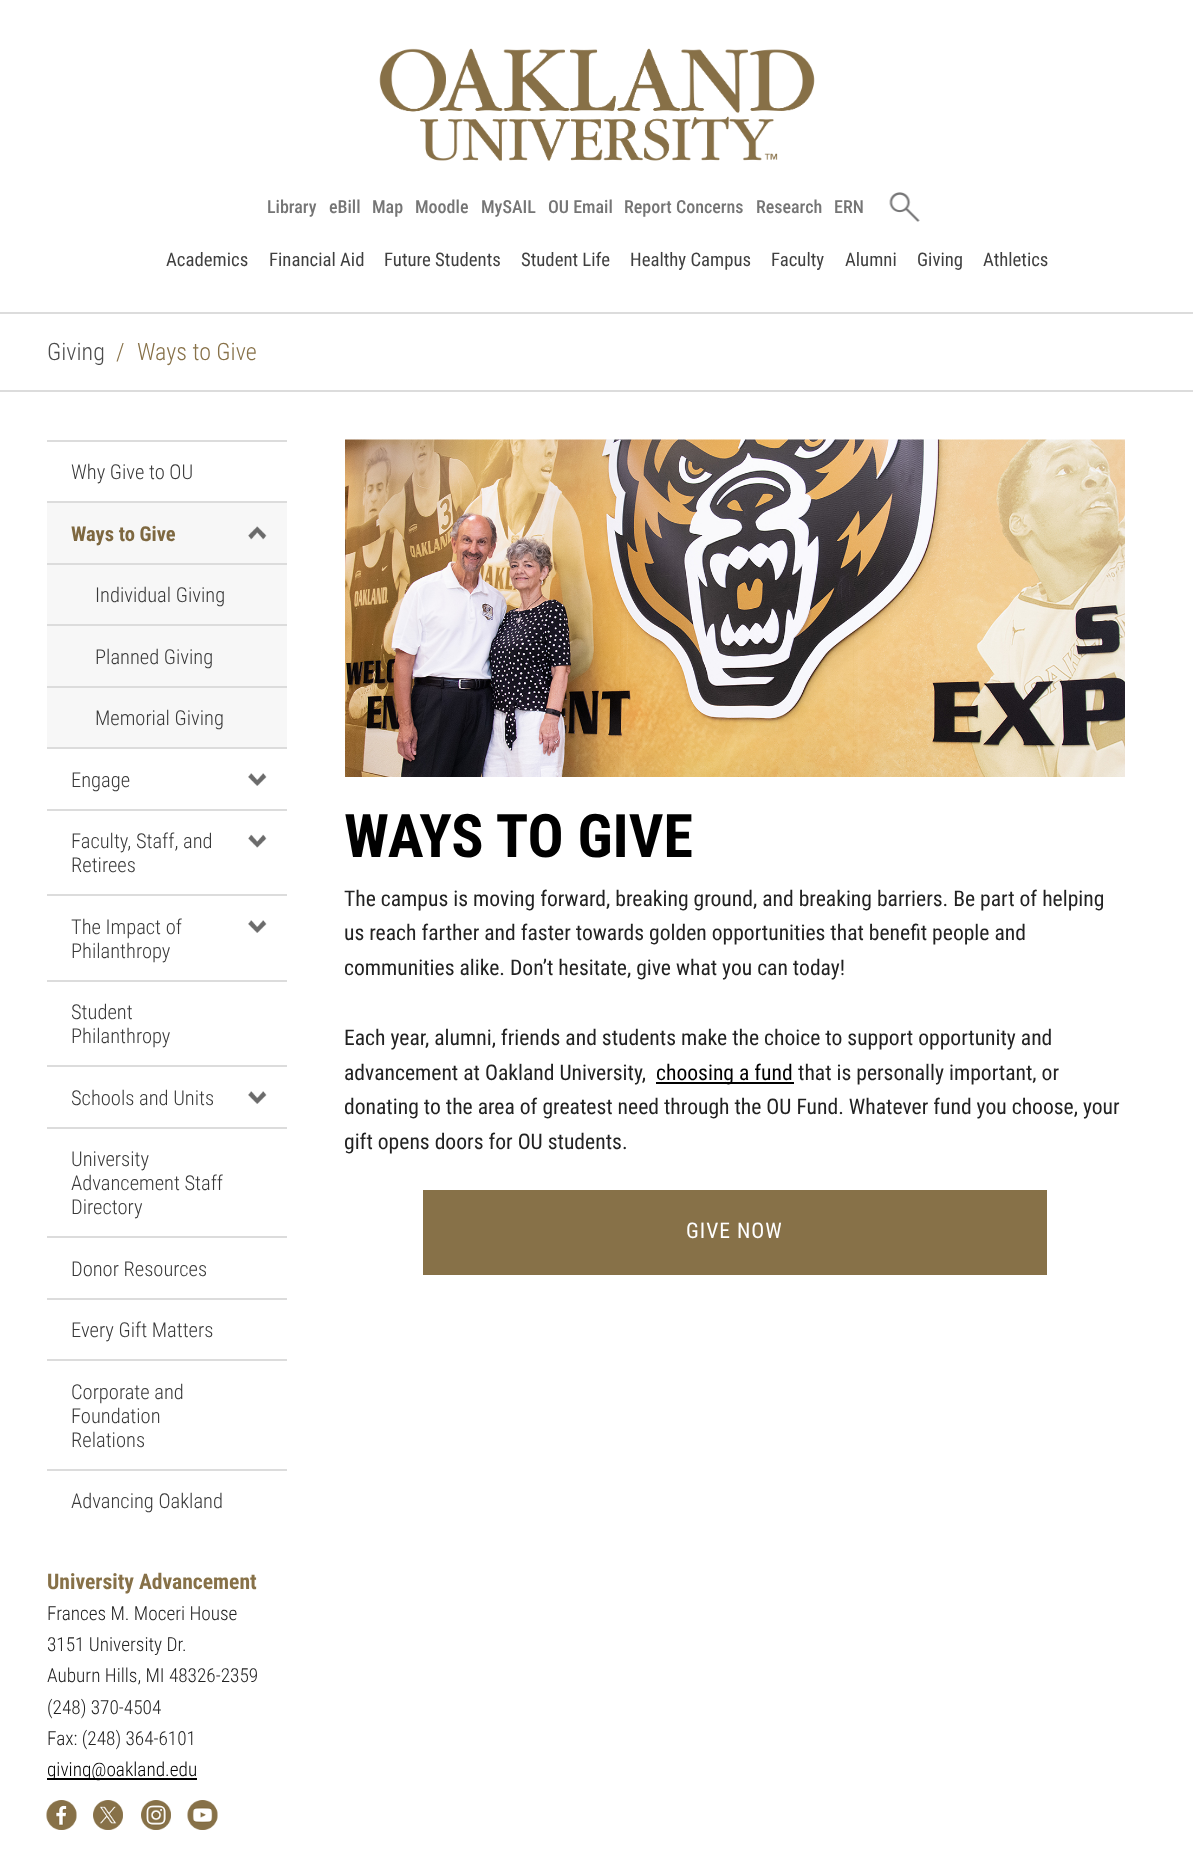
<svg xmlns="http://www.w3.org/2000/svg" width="1193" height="1868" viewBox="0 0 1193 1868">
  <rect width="100%" height="100%" fill="rgb(255,255,255)"/>
  <image x="379" y="48" width="436" height="113" href="pic1.png"/>
  <g font-family="Roboto Condensed" font-size="18" font-weight="500" fill="rgb(117,117,117)">
    <text x="267" y="213">Library</text>
    <text x="329" y="213">eBill</text>
    <text x="372" y="213">Map</text>
    <text x="415" y="213">Moodle</text>
    <text x="481" y="213">MySAIL</text>
    <text x="548" y="213">OU Email</text>
    <text x="624" y="213">Report Concerns</text>
    <text x="756" y="213">Research</text>
    <text x="834" y="213">ERN</text>
  </g>
  <image x="889" y="192" width="31" height="30" href="pic2.png"/>
  <g font-family="Roboto Condensed" font-size="18.75" fill="rgb(64,64,64)">
    <text x="166" y="266">Academics</text>
    <text x="269" y="266">Financial Aid</text>
    <text x="384" y="266">Future Students</text>
    <text x="521" y="266">Student Life</text>
    <text x="630" y="266">Healthy Campus</text>
    <text x="771" y="266">Faculty</text>
    <text x="845" y="266">Alumni</text>
    <text x="917" y="266">Giving</text>
    <text x="983" y="266">Athletics</text>
  </g>
  <rect x="0" y="312" width="1193" height="2" fill="rgb(220,220,220)"/>
  <rect x="0" y="390" width="1193" height="2" fill="rgb(220,220,220)"/>
  <text x="47" y="360" font-family="Roboto Condensed" font-size="24" font-weight="300" fill="rgb(76,76,76)">Giving</text>
  <g font-family="Roboto Condensed" font-size="24" font-weight="300" fill="rgb(135,113,72)">
    <text x="116" y="360">/</text>
    <text x="137" y="360">Ways to Give</text>
  </g>
  <rect x="47" y="440" width="240" height="2" fill="rgb(220,220,220)"/>
  <text x="71" y="479" font-family="Roboto Condensed" font-size="20.5" font-weight="300" fill="rgb(56,56,56)">Why Give to OU</text>
  <rect x="47" y="503" width="240" height="244" fill="rgb(247,247,247)"/>
  <rect x="47" y="501" width="240" height="2" fill="rgb(220,220,220)"/>
  <text x="71" y="541" font-family="Roboto Condensed" font-size="20.5" font-weight="bold" fill="rgb(126,104,64)">Ways to Give</text>
  <image x="248" y="526" width="19" height="14" href="pic3.png"/>
  <rect x="47" y="563" width="240" height="2" fill="rgb(220,220,220)"/>
  <text x="95" y="602" font-family="Roboto Condensed" font-size="20.5" font-weight="300" fill="rgb(56,56,56)">Individual Giving</text>
  <rect x="47" y="624" width="240" height="2" fill="rgb(220,220,220)"/>
  <text x="95" y="664" font-family="Roboto Condensed" font-size="20.5" font-weight="300" fill="rgb(56,56,56)">Planned Giving</text>
  <rect x="47" y="686" width="240" height="2" fill="rgb(220,220,220)"/>
  <text x="95" y="725" font-family="Roboto Condensed" font-size="20.5" font-weight="300" fill="rgb(56,56,56)">Memorial Giving</text>
  <rect x="47" y="747" width="240" height="2" fill="rgb(220,220,220)"/>
  <text x="71" y="787" font-family="Roboto Condensed" font-size="20.5" font-weight="300" fill="rgb(56,56,56)">Engage</text>
  <image x="248" y="773" width="19" height="13" href="pic4.png"/>
  <rect x="47" y="809" width="240" height="2" fill="rgb(220,220,220)"/>
  <g font-family="Roboto Condensed" font-size="20.5" font-weight="300" fill="rgb(56,56,56)">
    <text>
      <tspan x="71" y="848">Faculty, Staff, and</tspan>
      <tspan x="71" y="872">Retirees</tspan>
    </text>
  </g>
  <image x="248" y="834" width="19" height="14" href="pic5.png"/>
  <rect x="47" y="894" width="240" height="2" fill="rgb(220,220,220)"/>
  <g font-family="Roboto Condensed" font-size="20.5" font-weight="300" fill="rgb(56,56,56)">
    <text>
      <tspan x="71" y="934">The Impact of</tspan>
      <tspan x="71" y="958">Philanthropy</tspan>
    </text>
  </g>
  <image x="248" y="920" width="19" height="13" href="pic4.png"/>
  <rect x="47" y="980" width="240" height="2" fill="rgb(220,220,220)"/>
  <g font-family="Roboto Condensed" font-size="20.5" font-weight="300" fill="rgb(56,56,56)">
    <text>
      <tspan x="71" y="1019">Student</tspan>
      <tspan x="71" y="1043">Philanthropy</tspan>
    </text>
  </g>
  <rect x="47" y="1065" width="240" height="2" fill="rgb(220,220,220)"/>
  <text x="71" y="1105" font-family="Roboto Condensed" font-size="20.5" font-weight="300" fill="rgb(56,56,56)">Schools and Units</text>
  <image x="248" y="1091" width="19" height="13" href="pic4.png"/>
  <rect x="47" y="1127" width="240" height="2" fill="rgb(220,220,220)"/>
  <g font-family="Roboto Condensed" font-size="20.5" font-weight="300" fill="rgb(56,56,56)">
    <text>
      <tspan x="71" y="1166">University</tspan>
      <tspan x="71" y="1190">Advancement Staff</tspan>
      <tspan x="71" y="1214">Directory</tspan>
    </text>
  </g>
  <rect x="47" y="1236" width="240" height="2" fill="rgb(220,220,220)"/>
  <text x="71" y="1276" font-family="Roboto Condensed" font-size="20.5" font-weight="300" fill="rgb(56,56,56)">Donor Resources</text>
  <rect x="47" y="1298" width="240" height="2" fill="rgb(220,220,220)"/>
  <text x="71" y="1337" font-family="Roboto Condensed" font-size="20.5" font-weight="300" fill="rgb(56,56,56)">Every Gift Matters</text>
  <rect x="47" y="1359" width="240" height="2" fill="rgb(220,220,220)"/>
  <g font-family="Roboto Condensed" font-size="20.5" font-weight="300" fill="rgb(56,56,56)">
    <text>
      <tspan x="71" y="1399">Corporate and</tspan>
      <tspan x="71" y="1423">Foundation</tspan>
      <tspan x="71" y="1447">Relations</tspan>
    </text>
  </g>
  <rect x="47" y="1469" width="240" height="2" fill="rgb(220,220,220)"/>
  <text x="71" y="1508" font-family="Roboto Condensed" font-size="20.5" font-weight="300" fill="rgb(56,56,56)">Advancing Oakland</text>
  <text x="47" y="1589" font-family="Roboto Condensed" font-size="21.6" font-weight="bold" fill="rgb(135,113,72)">University Advancement</text>
  <g font-family="Roboto Condensed" font-size="19.25" font-weight="300" fill="rgb(34,34,34)">
    <text>
      <tspan x="47" y="1620">Frances M. Moceri House</tspan>
      <tspan x="47" y="1651">3151 University Dr.</tspan>
      <tspan x="47" y="1682">Auburn Hills, MI 48326-2359</tspan>
      <tspan x="47" y="1714">(248) 370-4504</tspan>
      <tspan x="47" y="1745">Fax: (248) 364-6101</tspan>
    </text>
  </g>
  <rect x="47" y="1778" width="150" height="2" fill="rgb(0,0,0)"/>
  <text x="47" y="1776" font-family="Roboto Condensed" font-size="19.25" font-weight="300" fill="rgb(0,0,0)">giving@oakland.edu</text>
  <image x="46" y="1800" width="31" height="30" href="pic6.png"/>
  <image x="93" y="1800" width="30" height="30" href="pic7.png"/>
  <image x="141" y="1800" width="30" height="30" href="pic8.png"/>
  <image x="187" y="1800" width="31" height="30" href="pic9.png"/>
  <image x="345" y="439" width="780" height="338" href="pic10.png"/>
  <text x="344" y="857" font-family="Roboto Condensed" font-size="60" font-weight="bold" fill="rgb(0,0,0)">WAYS TO GIVE</text>
  <g font-family="Roboto Condensed" font-size="21.6" fill="rgb(34,34,34)">
    <text>
      <tspan x="344" y="906">The campus is moving forward, breaking ground, and breaking barriers. Be part of helping</tspan>
      <tspan x="344" y="940">us reach farther and faster towards golden opportunities that benefit people and</tspan>
      <tspan x="344" y="975">communities alike. Don’t hesitate, give what you can today!</tspan>
    </text>
    <text>
      <tspan x="344" y="1045">Each year, alumni, friends and students make the choice to support opportunity and</tspan>
      <tspan x="344" y="1080">advancement at Oakland University,</tspan>
    </text>
  </g>
  <rect x="656" y="1082" width="138" height="2" fill="rgb(0,0,0)"/>
  <text x="656" y="1080" font-family="Roboto Condensed" font-size="21.6" fill="rgb(0,0,0)">choosing a fund</text>
  <g font-family="Roboto Condensed" font-size="21.6" fill="rgb(34,34,34)">
    <text x="798" y="1080">that is personally important, or</text>
    <text>
      <tspan x="344" y="1114">donating to the area of greatest need through the OU Fund. Whatever fund you choose, your</tspan>
      <tspan x="344" y="1149">gift opens doors for OU students.</tspan>
    </text>
  </g>
  <rect x="423" y="1190" width="624" height="85" fill="rgb(135,113,72)"/>
  <text x="686" y="1238" font-family="Roboto Condensed" font-size="21.6" letter-spacing="1" fill="rgb(255,255,255)">GIVE NOW</text>
</svg>
